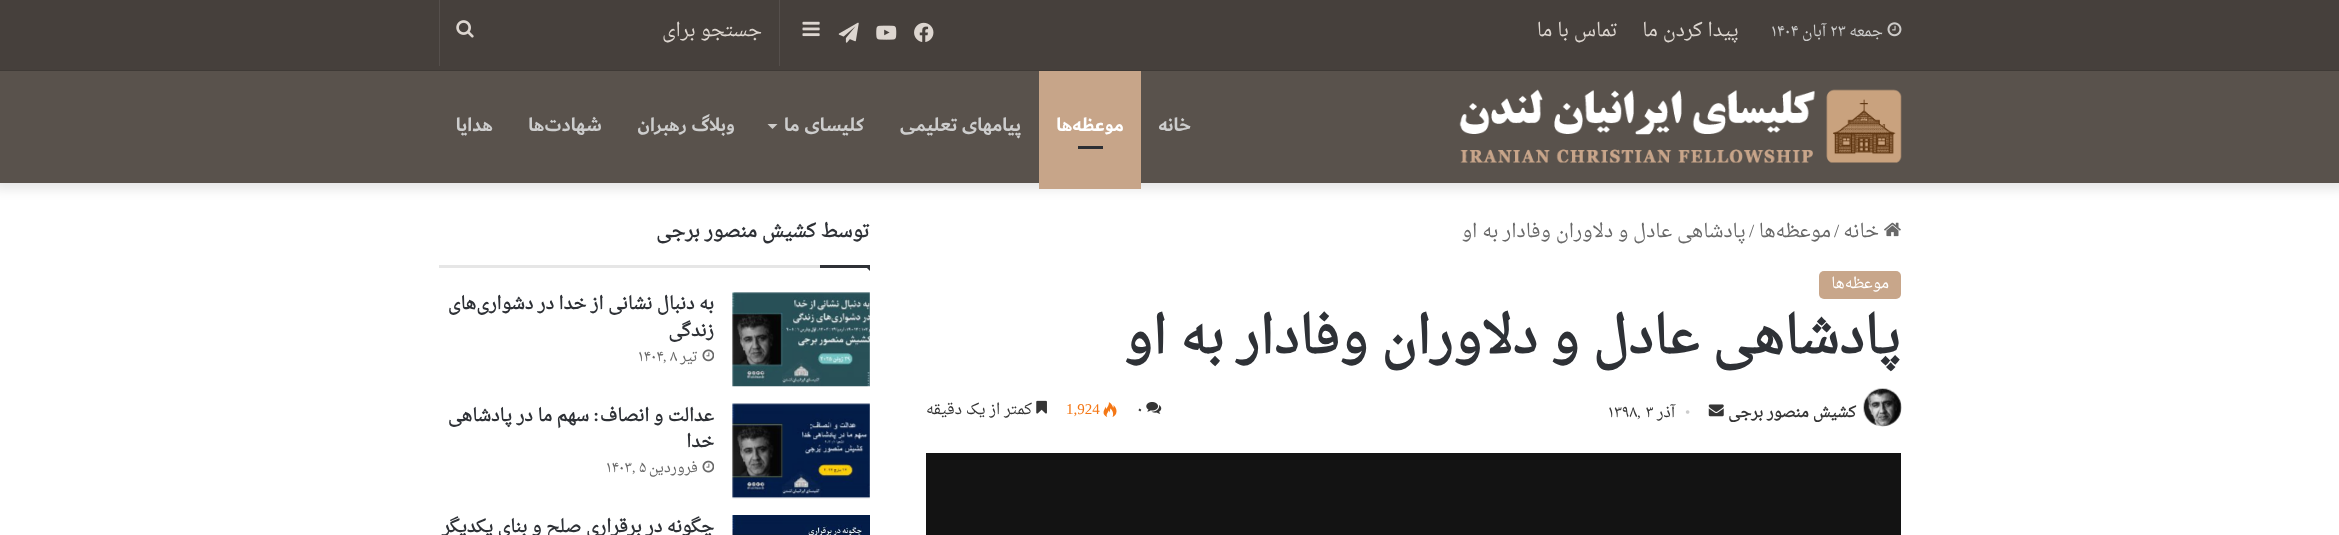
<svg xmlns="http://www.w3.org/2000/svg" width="2339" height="535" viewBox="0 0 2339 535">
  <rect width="100%" height="100%" fill="rgb(255,255,255)"/>
  <rect x="-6" y="-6" width="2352" height="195" fill="rgba(0,0,0,0.1)" filter="blur(6px)"/>
  <rect x="0" y="0" width="2339" height="70" fill="rgb(70,64,60)"/>
  <rect x="0" y="70" width="2339" height="1" fill="rgb(63,58,54)"/>
  <image x="1887" y="22" width="15" height="15" href="pic1.png"/>
  <text x="1883" y="36" font-family="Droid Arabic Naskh" font-size="15" direction="rtl" fill="rgb(205,205,205)">جمعه</text>
  <text x="1830" y="36" font-family="Droid Arabic Naskh" font-size="15" fill="rgb(205,205,205)">۲۳</text>
  <text x="1826" y="36" font-family="Droid Arabic Naskh" font-size="15" direction="rtl" fill="rgb(205,205,205)">آبان</text>
  <text x="1771" y="36" font-family="Droid Arabic Naskh" font-size="15" fill="rgb(205,205,205)">۱۴۰۴</text>
  <g font-family="Droid Arabic Naskh" font-size="18.75" direction="rtl" fill="rgb(221,214,208)">
    <text x="1739" y="36">پیدا کردن ما</text>
    <text x="1618" y="36">تماس با ما</text>
  </g>
  <image x="914" y="22" width="20" height="20" href="pic2.png"/>
  <image x="876" y="25" width="21" height="15" href="pic3.png"/>
  <image x="838" y="22" width="21" height="21" href="pic4.png"/>
  <image x="802" y="21" width="18" height="16" href="pic5.png"/>
  <rect x="779" y="0" width="1" height="66" fill="rgb(85,79,76)"/>
  <rect x="439" y="0" width="1" height="66" fill="rgb(85,79,76)"/>
  <text x="762" y="36" font-family="Droid Arabic Naskh" font-size="18.75" direction="rtl" fill="rgb(221,214,208)">جستجو برای</text>
  <image x="456" y="20" width="18" height="18" href="pic6.png"/>
  <rect x="0" y="71" width="2339" height="112" fill="rgb(89,82,76)"/>
  <image x="1459" y="89" width="443" height="74" href="pic7.png"/>
  <text x="1191" y="131" font-family="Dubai" font-size="20" font-weight="bold" direction="rtl" fill="rgb(205,205,205)">خانه</text>
  <rect x="1039" y="71" width="102" height="118" fill="rgb(199,165,137)"/>
  <text x="1124" y="131" font-family="Dubai" font-size="20" font-weight="bold" direction="rtl" fill="rgb(255,255,255)">موعظه‌ها</text>
  <rect x="1078" y="146" width="25" height="3" fill="rgb(44,47,52)"/>
  <g font-family="Dubai" font-size="20" font-weight="bold" direction="rtl" fill="rgb(205,205,205)">
    <text x="1021" y="131">پیامهای تعلیمی</text>
    <text x="864" y="131">کلیسای ما</text>
  </g>
  <path d="M767.5 124H777.5L772.5 129Z" fill="rgb(205,203,201)"/>
  <g font-family="Dubai" font-size="20" font-weight="bold" direction="rtl" fill="rgb(205,205,205)">
    <text x="735" y="131">وبلاگ رهبران</text>
    <text x="602" y="131">شهادت‌ها</text>
    <text x="493" y="131">هدایا</text>
  </g>
  <image x="1884" y="222" width="17" height="15" href="pic8.png"/>
  <text x="1879" y="237" font-family="Droid Arabic Naskh" font-size="18.75" direction="rtl" fill="rgb(104,104,104)">خانه</text>
  <text x="1834" y="237" font-family="Liberation Serif" font-size="18.75" fill="rgb(104,104,104)">/</text>
  <text x="1831" y="237" font-family="Droid Arabic Naskh" font-size="18.75" direction="rtl" fill="rgb(104,104,104)">موعظه‌ها</text>
  <text x="1749" y="237" font-family="Liberation Serif" font-size="18.75" fill="rgb(104,104,104)">/</text>
  <text x="1746" y="237" font-family="Droid Arabic Naskh" font-size="18.75" direction="rtl" fill="rgb(104,104,104)">پادشاهى عادل و دلاوران وفادار به او</text>
  <rect x="1819" y="271" width="82" height="28" rx="5" fill="rgb(200,166,138)"/>
  <text x="1889" y="288" font-family="Droid Arabic Naskh" font-size="15" direction="rtl" fill="rgb(255,255,255)">موعظه‌ها</text>
  <text x="1901" y="353" font-family="Droid Arabic Naskh" font-size="51.25" font-weight="bold" direction="rtl" fill="rgb(46,49,54)">پادشاهى عادل و دلاوران وفادار به او</text>
  <image x="1863" y="388" width="39" height="39" href="pic9.png"/>
  <text x="1856" y="417" font-family="Droid Arabic Naskh" font-size="15" font-weight="bold" direction="rtl" fill="rgb(53,53,53)">کشیش منصور برجی</text>
  <image x="1708" y="404" width="16" height="13" href="pic10.png"/>
  <text x="1685" y="417" font-family="Liberation Serif" font-size="15" fill="rgb(205,205,205)">•</text>
  <text x="1675" y="417" font-family="Droid Arabic Naskh" font-size="15" direction="rtl" fill="rgb(53,53,53)">آذر</text>
  <g font-family="Droid Arabic Naskh" font-size="15" fill="rgb(53,53,53)">
    <text x="1645" y="417">۳</text>
    <text x="1608" y="417">۱۳۹۸</text>
  </g>
  <text x="1637" y="417" font-family="Liberation Serif" font-size="15" fill="rgb(53,53,53)">,</text>
  <image x="1146" y="402" width="16" height="12" href="pic11.png"/>
  <text x="1137" y="414" font-family="Droid Arabic Naskh" font-size="15" fill="rgb(53,53,53)">۰</text>
  <image x="1103" y="402" width="14" height="15" href="pic12.png"/>
  <text x="1066" y="414" font-family="Liberation Serif" font-size="15" fill="rgb(244,118,20)">1,924</text>
  <image x="1036" y="400" width="11" height="14" href="pic13.png"/>
  <text x="1032" y="414" font-family="Droid Arabic Naskh" font-size="15" direction="rtl" fill="rgb(53,53,53)">کمتر از یک دقیقه</text>
  <rect x="926" y="453" width="975" height="82" fill="rgb(19,19,19)"/>
  <rect x="439" y="265" width="381" height="3" fill="rgb(230,230,230)"/>
  <text x="870" y="237" font-family="Droid Arabic Naskh" font-size="18.75" font-weight="bold" direction="rtl" fill="rgb(46,49,54)">توسط کشیش منصور برجی</text>
  <path d="M864 265H870V271Z" fill="rgb(46,49,54)"/>
  <rect x="820" y="265" width="50" height="3" fill="rgb(46,49,54)"/>
  <image x="732" y="292" width="138" height="95" href="pic14.png"/>
  <g font-family="Droid Arabic Naskh" font-size="17.5" font-weight="bold" direction="rtl" fill="rgb(46,49,54)">
    <text>
      <tspan x="714" y="309">به دنبال نشانی از خدا در دشواری‌های</tspan>
      <tspan x="714" y="336">زندگی</tspan>
    </text>
  </g>
  <image x="702" y="349" width="12" height="13" href="pic15.png"/>
  <text x="698" y="361" font-family="Droid Arabic Naskh" font-size="14" direction="rtl" fill="rgb(104,104,104)">تیر</text>
  <text x="670" y="361" font-family="Droid Arabic Naskh" font-size="14" fill="rgb(104,104,104)">۸</text>
  <text x="663" y="361" font-family="Liberation Serif" font-size="14" fill="rgb(104,104,104)">,</text>
  <text x="638" y="361" font-family="Droid Arabic Naskh" font-size="14" fill="rgb(104,104,104)">۱۴۰۴</text>
  <image x="732" y="403" width="138" height="96" href="pic16.png"/>
  <text x="714" y="421" font-family="Droid Arabic Naskh" font-size="17.5" font-weight="bold" direction="rtl" fill="rgb(46,49,54)">عدالت و انصاف</text>
  <text x="599" y="421" font-family="Liberation Serif" font-size="17.5" font-weight="bold" direction="rtl" fill="rgb(46,49,54)">:</text>
  <g font-family="Droid Arabic Naskh" font-size="17.5" font-weight="bold" direction="rtl" fill="rgb(46,49,54)">
    <text x="589" y="421">سهم ما در پادشاهی</text>
    <text x="714" y="447">خدا</text>
  </g>
  <image x="702" y="460" width="12" height="13" href="pic17.png"/>
  <text x="698" y="472" font-family="Droid Arabic Naskh" font-size="14" direction="rtl" fill="rgb(104,104,104)">فروردین</text>
  <g font-family="Droid Arabic Naskh" font-size="14" fill="rgb(104,104,104)">
    <text x="639" y="472">۵</text>
    <text x="606" y="472">۱۴۰۳</text>
  </g>
  <text x="632" y="472" font-family="Liberation Serif" font-size="14" fill="rgb(104,104,104)">,</text>
  <image x="732" y="515" width="138" height="20" href="pic18.png"/>
  <text x="714" y="532" font-family="Droid Arabic Naskh" font-size="17.5" font-weight="bold" direction="rtl" fill="rgb(46,49,54)">چگونه در برقراری صلح و بنای یکدیگر</text>
</svg>
